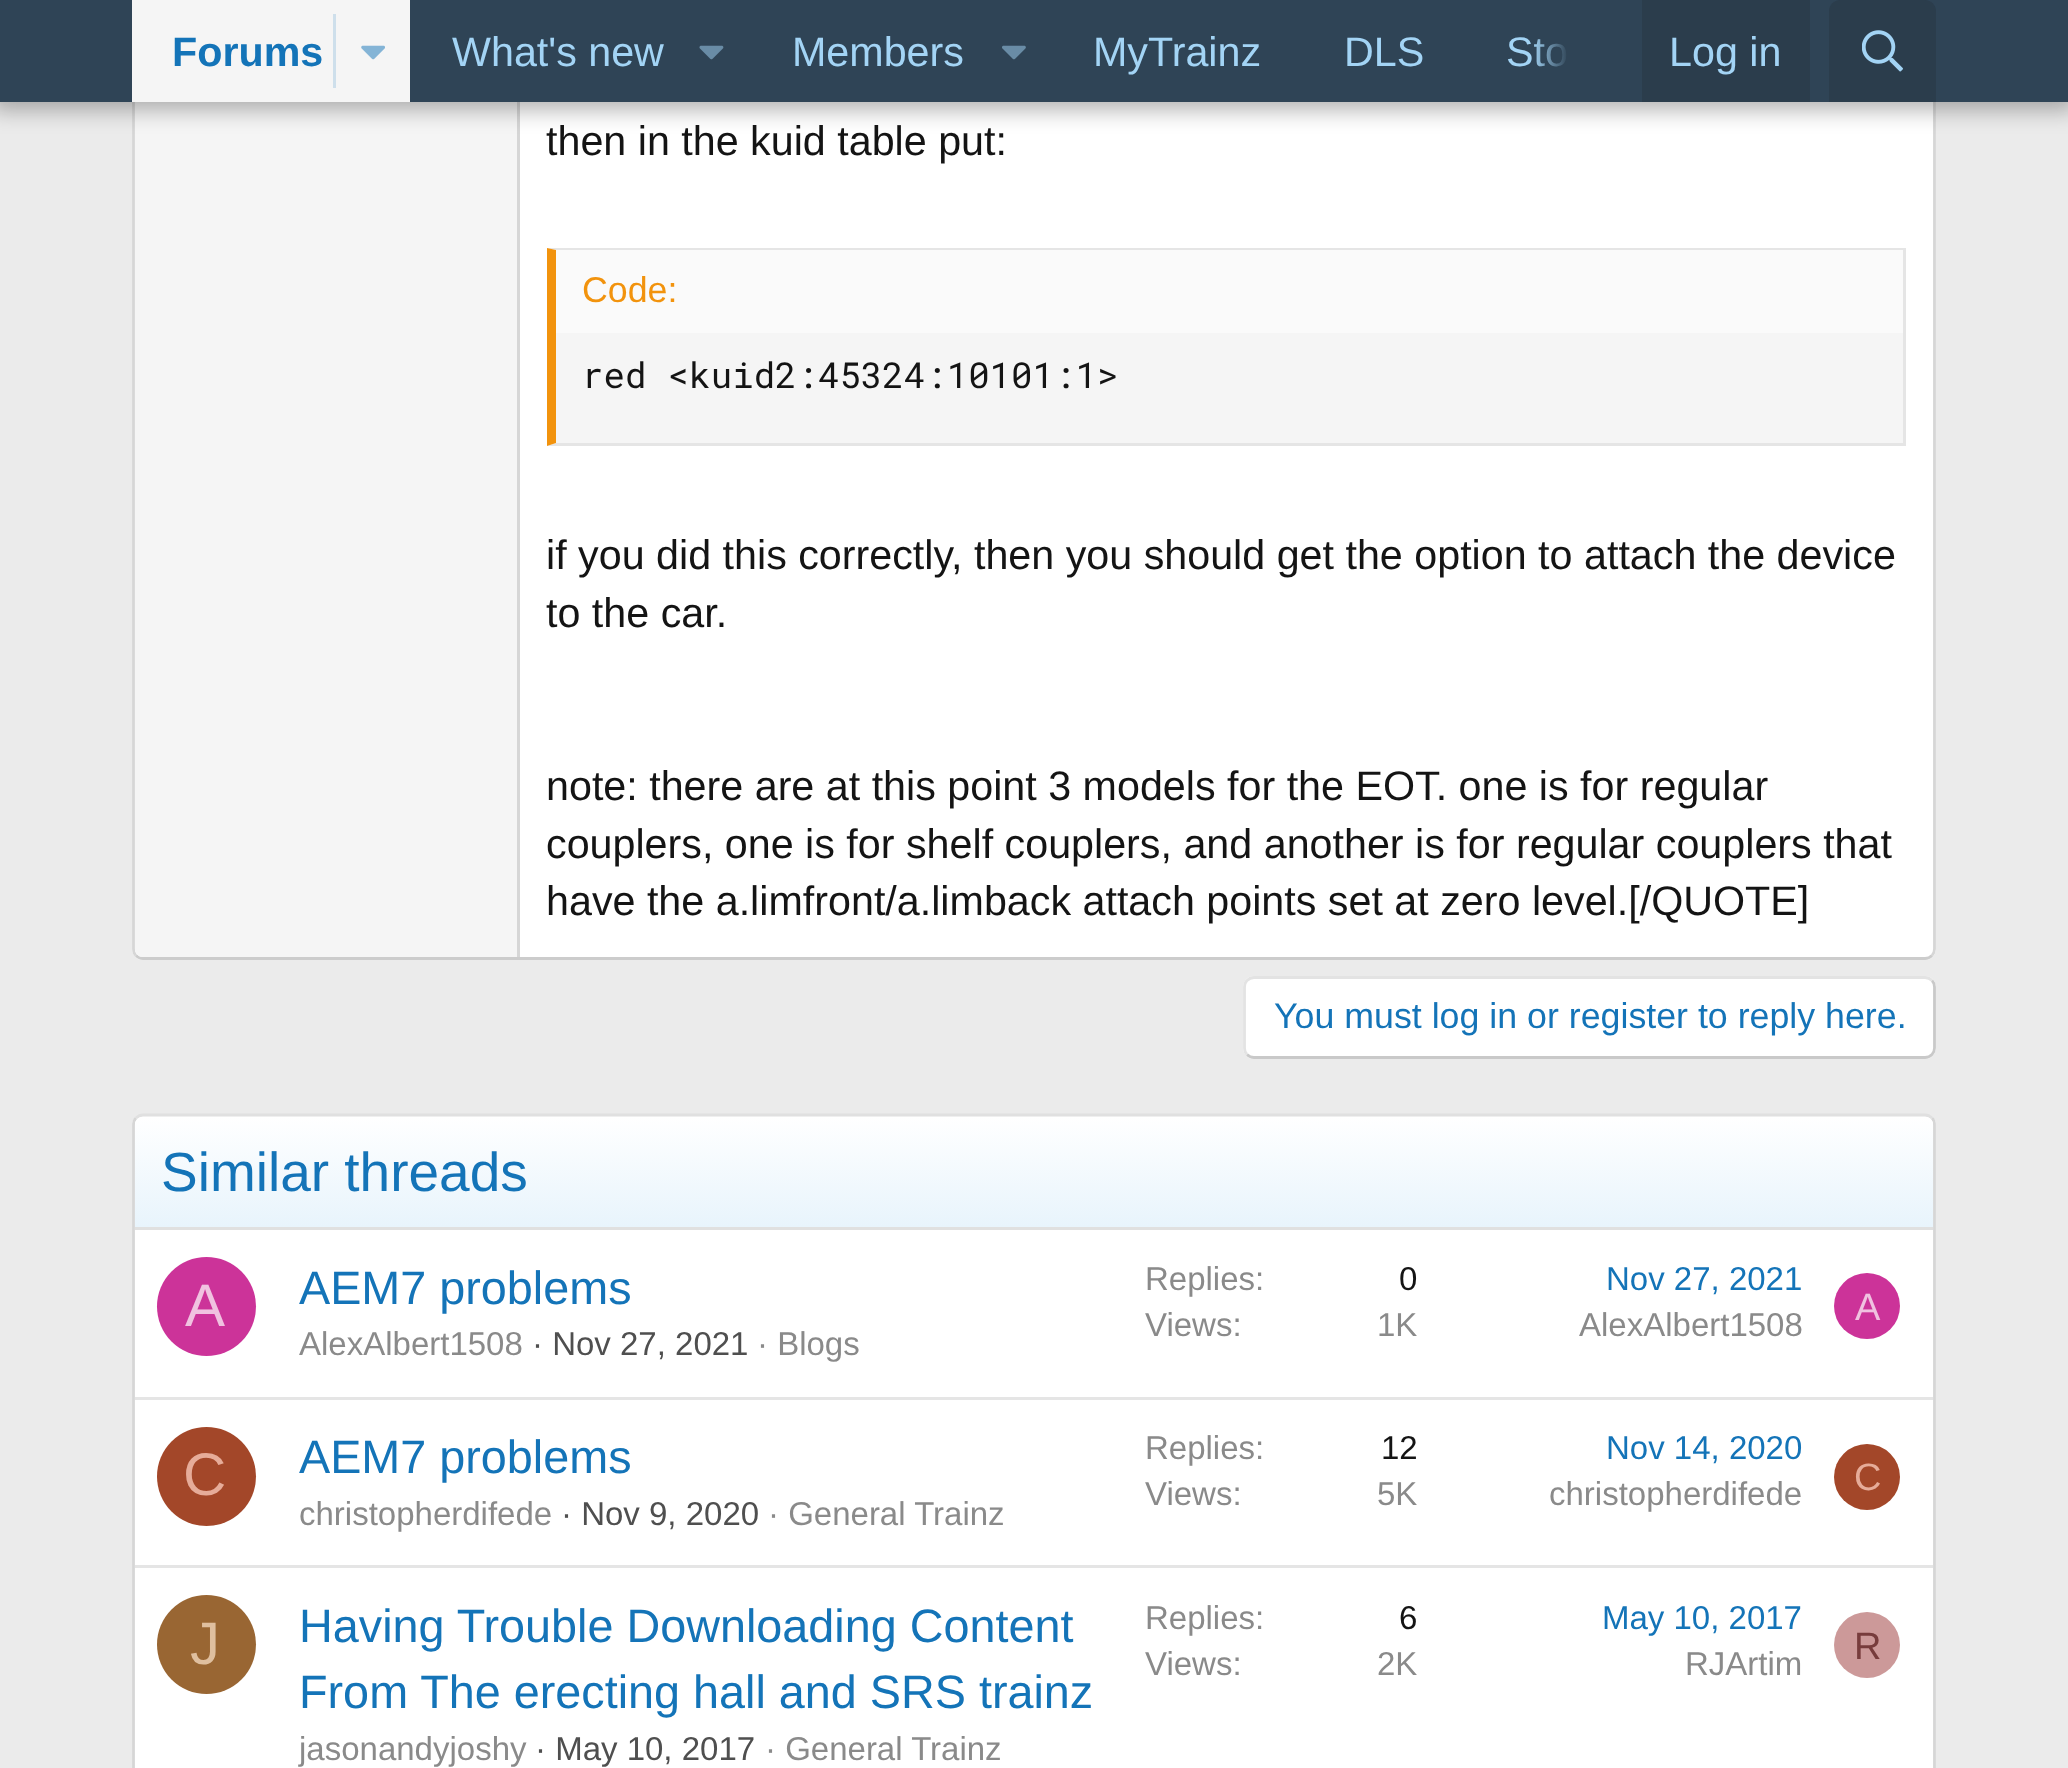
<svg xmlns="http://www.w3.org/2000/svg" width="2068" height="1768" viewBox="0 0 2068 1768">
  <defs>
    <linearGradient id="g1" gradientUnits="userSpaceOnUse" x1="1532" y1="51" x2="1642" y2="51"><stop offset="0" stop-color="rgb(47,68,86)" stop-opacity="0"/><stop offset="0.33" stop-color="rgb(47,68,86)"/></linearGradient>
    <linearGradient id="g2" gradientUnits="userSpaceOnUse" x1="1034" y1="1227" x2="1034" y2="1117"><stop offset="0" stop-color="rgb(232,244,252)"/><stop offset="1" stop-color="rgb(255,255,255)"/></linearGradient>
  </defs>
  <rect width="100%" height="100%" fill="rgb(235,235,235)"/>
  <rect x="132" y="-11" width="1804" height="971" rx="11" fill="rgb(255,255,255)"/>
  <path d="M1932-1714.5C1933.5-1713 1934.5-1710.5 1934.5-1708V949C1934.5 951.5 1933.5 954 1932 955.5" fill="none" stroke="rgb(214,214,214)" stroke-width="2.8"/>
  <path d="M1932 955.5C1930 957.5 1927.5 958.5 1925 958.5H143C140.5 958.5 138 957.5 136 955.5" fill="none" stroke="rgb(204,204,204)" stroke-width="2.8"/>
  <path d="M136 955.5C134.5 954 133.5 951.5 133.5 949V-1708C133.5-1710.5 134.5-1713 136-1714.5" fill="none" stroke="rgb(214,214,214)" stroke-width="2.8"/>
  <path d="M143-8H520V957H143C138.5 957 135 953.5 135 949V0C135-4.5 138.5-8 143-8Z" fill="rgb(245,245,245)"/>
  <rect x="517" y="102" width="3" height="855" fill="rgb(214,214,214)"/>
  <rect x="-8" y="-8" width="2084" height="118" fill="rgba(0,0,0,0.3)" filter="blur(11px)"/>
  <rect x="0" y="0" width="2068" height="102" fill="rgb(47,68,86)"/>
  <rect x="132" y="0" width="278" height="102" fill="rgb(245,245,245)"/>
  <text x="172" y="66" font-family="Liberation Sans" font-size="41.25" font-weight="bold" fill="rgb(20,116,184)">Forums</text>
  <rect x="333" y="14" width="3" height="74" fill="rgb(206,223,235)"/>
  <image x="361" y="45" width="24" height="15" href="pic1.png"/>
  <text x="452" y="66" font-family="Liberation Sans" font-size="41.25" fill="rgb(163,212,245)">What's new</text>
  <image x="699" y="45" width="25" height="15" href="pic2.png"/>
  <text x="792" y="66" font-family="Liberation Sans" font-size="41.25" fill="rgb(163,212,245)">Members</text>
  <image x="1002" y="45" width="24" height="15" href="pic3.png"/>
  <g font-family="Liberation Sans" font-size="41.25" fill="rgb(163,212,245)">
    <text x="1093" y="66">MyTrainz</text>
    <text x="1344" y="66">DLS</text>
    <text x="1506" y="66">Sto</text>
  </g>
  <rect x="1534" y="39" width="33" height="28" fill="url(#g1)"/>
  <rect x="1642" y="0" width="168" height="102" fill="rgb(43,61,76)"/>
  <text x="1669" y="66" font-family="Liberation Sans" font-size="41.25" fill="rgb(163,212,245)">Log in</text>
  <path d="M1840 0H1925C1931 0 1936 5 1936 11V102H1829V11C1829 5 1834 0 1840 0Z" fill="rgb(43,61,76)"/>
  <image x="1862" y="30" width="41" height="42" href="pic4.png"/>
  <text x="546" y="155" font-family="Liberation Sans" font-size="41.25" fill="rgb(20,20,20)">then in the kuid table put:</text>
  <rect x="556" y="333" width="1347" height="110" fill="rgb(245,245,245)"/>
  <path d="M547 248H1906L1903 250H556Z" fill="rgb(229,229,229)"/>
  <rect x="1903" y="248" width="3" height="198" fill="rgb(229,229,229)"/>
  <path d="M1906 446H547L556 443H1903Z" fill="rgb(229,229,229)"/>
  <path d="M547 446V248L556 250V443Z" fill="rgb(242,147,13)"/>
  <rect x="556" y="250" width="1347" height="83" fill="rgb(250,250,250)"/>
  <text x="582" y="302" font-family="Liberation Sans" font-size="35.75" fill="rgb(242,147,13)">Code:</text>
  <text x="582" y="388" font-family="Roboto Mono" font-size="35.75" fill="rgb(20,20,20)">red &lt;kuid2:45324:10101:1&gt;</text>
  <g font-family="Liberation Sans" font-size="41.25" fill="rgb(20,20,20)">
    <text>
      <tspan x="546" y="569">if you did this correctly, then you should get the option to attach the device</tspan>
      <tspan x="546" y="627">to the car.</tspan>
    </text>
    <text>
      <tspan x="546" y="800">note: there are at this point 3 models for the EOT. one is for regular</tspan>
      <tspan x="546" y="858">couplers, one is for shelf couplers, and another is for regular couplers that</tspan>
      <tspan x="546" y="915">have the a.limfront/a.limback attach points set at zero level.[/QUOTE]</tspan>
    </text>
  </g>
  <rect x="1243" y="976" width="693" height="83" rx="11" fill="rgb(255,255,255)"/>
  <path d="M1932 980.5C1933.5 982 1934.5 984.5 1934.5 987V1048C1934.5 1050.5 1933.5 1053 1932 1054.5C1930 1056.5 1927.5 1057.5 1925 1057.5H1254C1251.5 1057.5 1249 1056.5 1247 1054.5" fill="none" stroke="rgb(201,201,201)" stroke-width="2.8"/>
  <path d="M1247 1054.5C1245.5 1053 1244.5 1050.5 1244.5 1048V987C1244.5 984.5 1245.5 982 1247 980.5C1249 978.5 1251.5 977.5 1254 977.5H1925C1927.5 977.5 1930 978.5 1932 980.5" fill="none" stroke="rgb(227,227,227)" stroke-width="2.8"/>
  <text x="1274" y="1028" font-family="Liberation Sans" font-size="35.75" fill="rgb(20,116,184)">You must log in or register to reply here.</text>
  <rect x="132" y="1114" width="1804" height="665" rx="11" fill="rgb(255,255,255)"/>
  <path d="M136 1118C138 1116 140.5 1115 143 1115H1925C1927.5 1115 1930 1116 1932 1118" fill="none" stroke="rgb(224,224,224)" stroke-width="2.8"/>
  <path d="M1932 1118C1933.5 1119.5 1934.5 1122 1934.5 1125V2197C1934.5 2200 1933.5 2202.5 1932 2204" fill="none" stroke="rgb(214,214,214)" stroke-width="2.8"/>
  <path d="M136 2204C134.5 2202.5 133.5 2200 133.5 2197V1125C133.5 1122 134.5 1119.5 136 1118" fill="none" stroke="rgb(214,214,214)" stroke-width="2.8"/>
  <path d="M143 1117H1925C1929.5 1117 1933 1120.5 1933 1125V1227H135V1125C135 1120.5 138.5 1117 143 1117Z" fill="url(#g2)"/>
  <rect x="135" y="1227" width="1798" height="3" fill="rgb(224,224,224)"/>
  <text x="161" y="1191" font-family="Liberation Sans" font-size="55" fill="rgb(20,116,184)">Similar threads</text>
  <circle cx="206.5" cy="1306.5" r="49.5" fill="rgb(204,51,153)"/>
  <text x="185" y="1326" font-family="Liberation Sans" font-size="60" fill="rgb(240,194,224)">A</text>
  <text x="299" y="1304" font-family="Liberation Sans" font-size="46.75" fill="rgb(20,116,184)">AEM7 problems</text>
  <text x="299" y="1355" font-family="Liberation Sans" font-size="33" fill="rgb(138,138,138)">AlexAlbert1508</text>
  <text x="532" y="1355" font-family="Liberation Sans" font-size="33" fill="rgb(79,79,79)">· Nov 27, 2021</text>
  <g font-family="Liberation Sans" font-size="33" fill="rgb(138,138,138)">
    <text x="757" y="1355">· Blogs</text>
    <text x="1145" y="1290">Replies:</text>
  </g>
  <text x="1399" y="1290" font-family="Liberation Sans" font-size="33" fill="rgb(20,20,20)">0</text>
  <g font-family="Liberation Sans" font-size="33" fill="rgb(138,138,138)">
    <text x="1145" y="1336">Views:</text>
    <text x="1377" y="1336">1K</text>
  </g>
  <text x="1606" y="1290" font-family="Liberation Sans" font-size="33" fill="rgb(20,116,184)">Nov 27, 2021</text>
  <text x="1579" y="1336" font-family="Liberation Sans" font-size="33" fill="rgb(138,138,138)">AlexAlbert1508</text>
  <circle cx="1867" cy="1306" r="33" fill="rgb(204,51,153)"/>
  <text x="1855" y="1320" font-family="Liberation Sans" font-size="38" fill="rgb(240,194,224)">A</text>
  <rect x="135" y="1397" width="1798" height="3" fill="rgb(229,229,229)"/>
  <circle cx="206.5" cy="1476.5" r="49.5" fill="rgb(163,71,41)"/>
  <text x="183" y="1495" font-family="Liberation Sans" font-size="60" fill="rgb(230,172,153)">C</text>
  <text x="299" y="1473" font-family="Liberation Sans" font-size="46.75" fill="rgb(20,116,184)">AEM7 problems</text>
  <text x="299" y="1525" font-family="Liberation Sans" font-size="33" fill="rgb(138,138,138)">christopherdifede</text>
  <text x="561" y="1525" font-family="Liberation Sans" font-size="33" fill="rgb(79,79,79)">· Nov 9, 2020</text>
  <g font-family="Liberation Sans" font-size="33" fill="rgb(138,138,138)">
    <text x="768" y="1525">· General Trainz</text>
    <text x="1145" y="1459">Replies:</text>
  </g>
  <text x="1381" y="1459" font-family="Liberation Sans" font-size="33" fill="rgb(20,20,20)">12</text>
  <g font-family="Liberation Sans" font-size="33" fill="rgb(138,138,138)">
    <text x="1145" y="1505">Views:</text>
    <text x="1377" y="1505">5K</text>
  </g>
  <text x="1606" y="1459" font-family="Liberation Sans" font-size="33" fill="rgb(20,116,184)">Nov 14, 2020</text>
  <text x="1549" y="1505" font-family="Liberation Sans" font-size="33" fill="rgb(138,138,138)">christopherdifede</text>
  <circle cx="1867" cy="1477" r="33" fill="rgb(163,71,41)"/>
  <text x="1854" y="1490" font-family="Liberation Sans" font-size="38" fill="rgb(230,172,153)">C</text>
  <rect x="135" y="1565" width="1798" height="3" fill="rgb(229,229,229)"/>
  <circle cx="206.5" cy="1644.5" r="49.5" fill="rgb(153,102,51)"/>
  <text x="190" y="1664" font-family="Liberation Sans" font-size="60" fill="rgb(223,191,159)">J</text>
  <g font-family="Liberation Sans" font-size="46.75" fill="rgb(20,116,184)">
    <text>
      <tspan x="299" y="1642">Having Trouble Downloading Content</tspan>
      <tspan x="299" y="1708">From The erecting hall and SRS trainz</tspan>
    </text>
  </g>
  <text x="299" y="1760" font-family="Liberation Sans" font-size="33" fill="rgb(138,138,138)">jasonandyjoshy</text>
  <text x="535" y="1760" font-family="Liberation Sans" font-size="33" fill="rgb(79,79,79)">· May 10, 2017</text>
  <g font-family="Liberation Sans" font-size="33" fill="rgb(138,138,138)">
    <text x="765" y="1760">· General Trainz</text>
    <text x="1145" y="1629">Replies:</text>
  </g>
  <text x="1399" y="1629" font-family="Liberation Sans" font-size="33" fill="rgb(20,20,20)">6</text>
  <g font-family="Liberation Sans" font-size="33" fill="rgb(138,138,138)">
    <text x="1145" y="1675">Views:</text>
    <text x="1377" y="1675">2K</text>
  </g>
  <text x="1602" y="1629" font-family="Liberation Sans" font-size="33" fill="rgb(20,116,184)">May 10, 2017</text>
  <text x="1685" y="1675" font-family="Liberation Sans" font-size="33" fill="rgb(138,138,138)">RJArtim</text>
  <circle cx="1867" cy="1645" r="33" fill="rgb(204,153,153)"/>
  <text x="1854" y="1659" font-family="Liberation Sans" font-size="38" fill="rgb(119,60,60)">R</text>
</svg>
